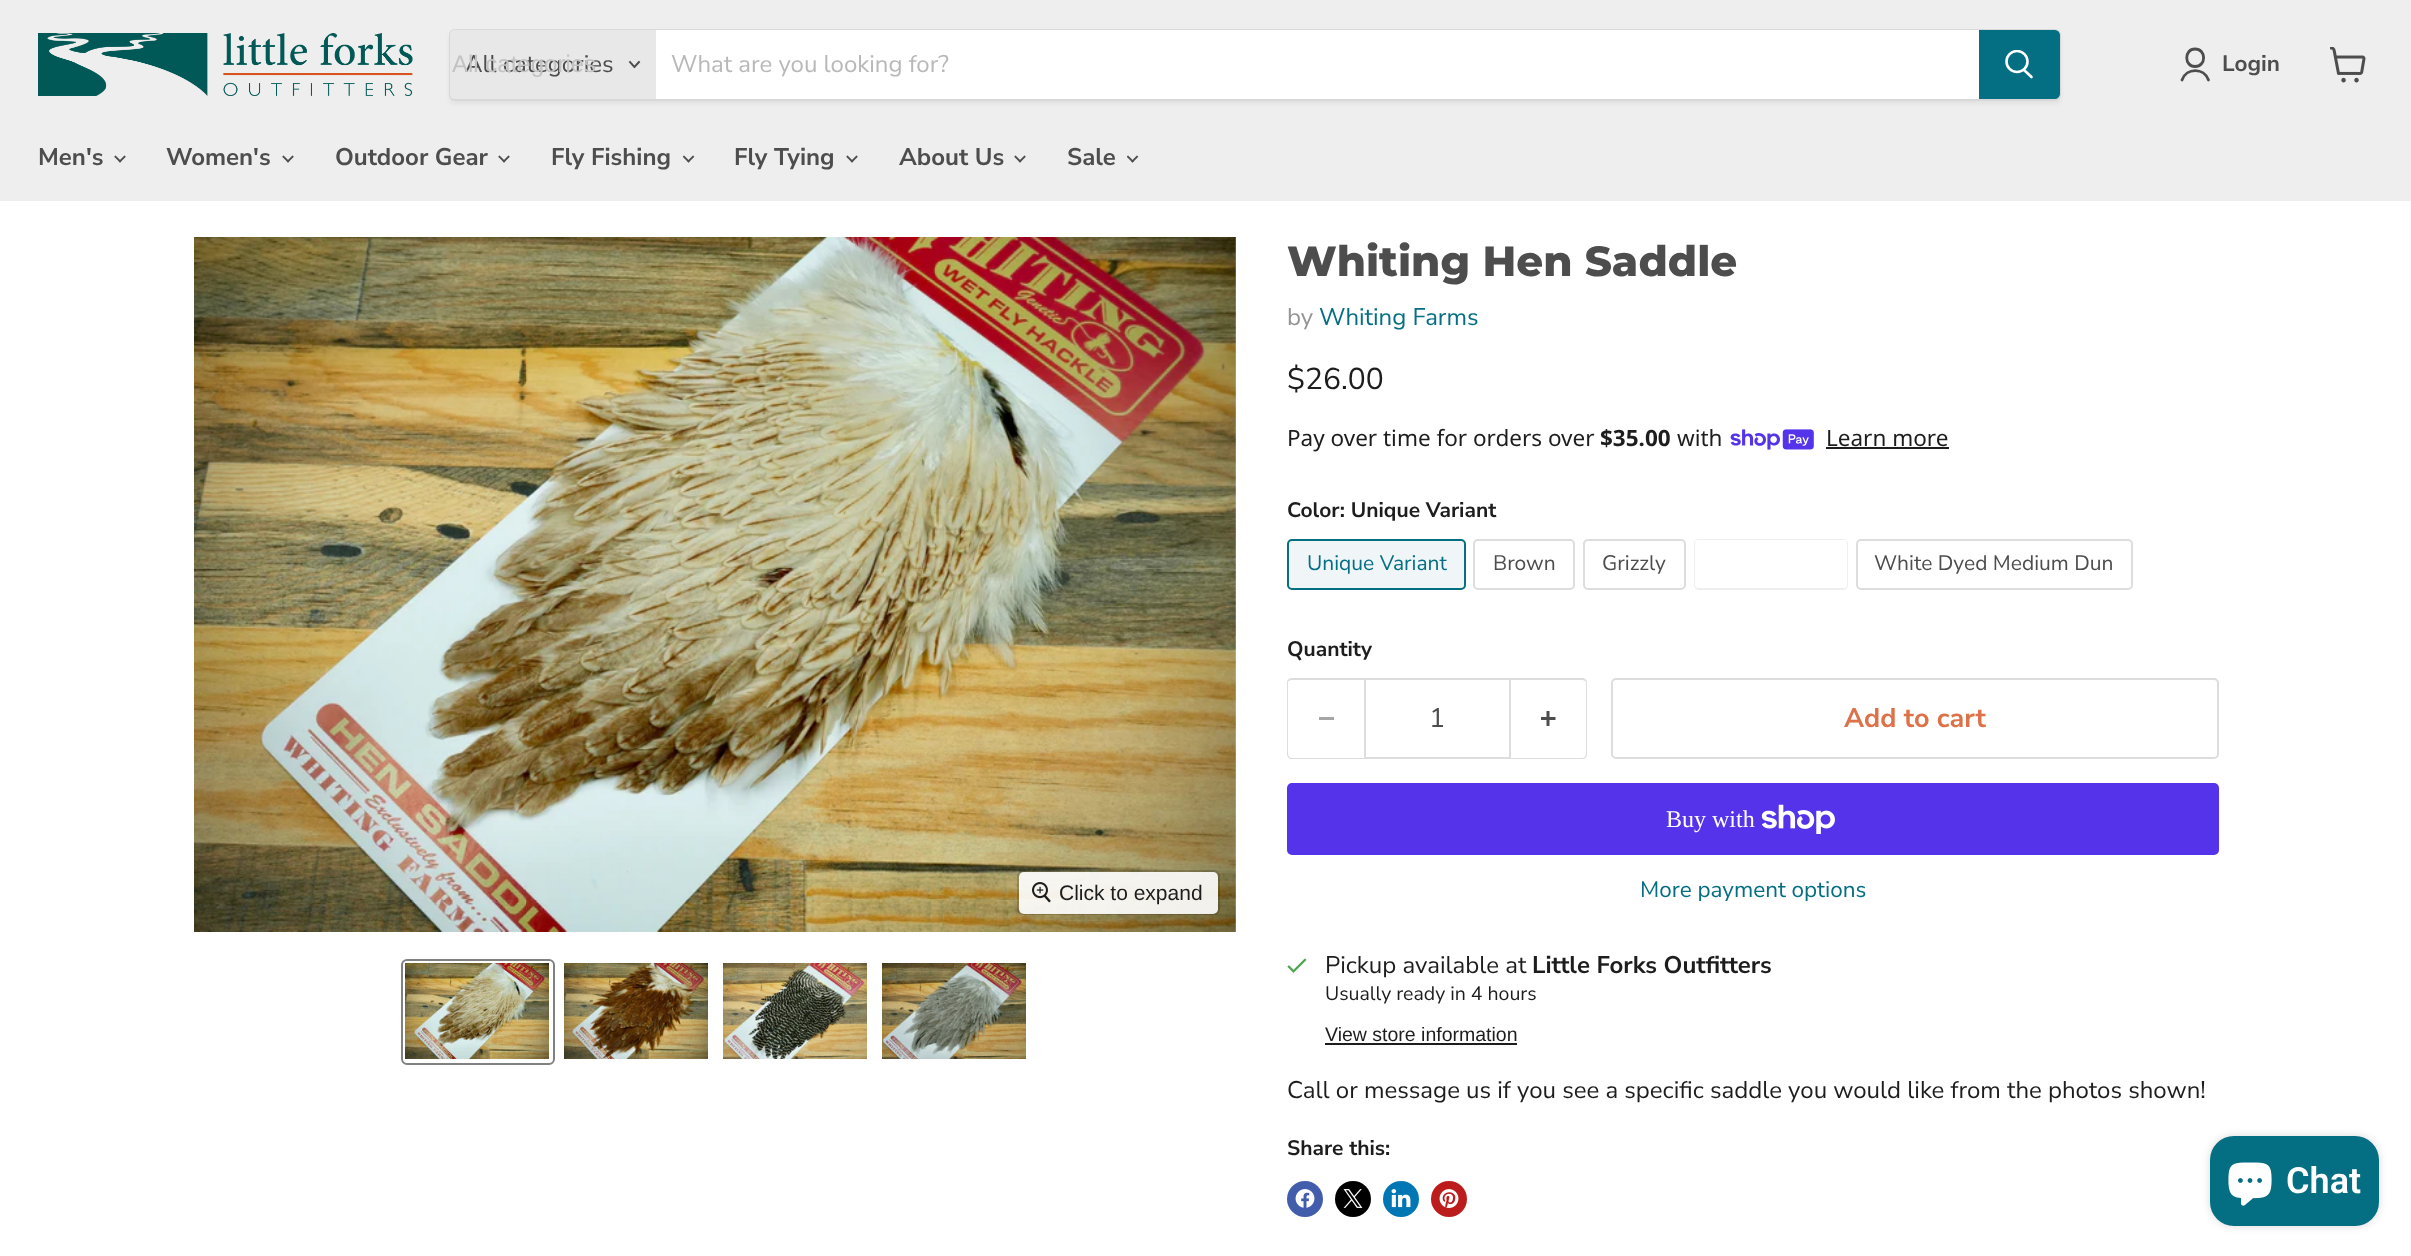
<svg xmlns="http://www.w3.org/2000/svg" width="2411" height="1256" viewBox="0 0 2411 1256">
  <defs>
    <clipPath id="clip1"><path d="M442 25H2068V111H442ZM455 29H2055C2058.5 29 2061 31.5 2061 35V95C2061 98.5 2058.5 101 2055 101H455C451.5 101 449 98.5 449 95V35C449 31.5 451.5 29 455 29Z" clip-rule="evenodd"/></clipPath>
    <clipPath id="clip2"><rect x="2004" y="50" width="30" height="31"/></clipPath>
  </defs>
  <rect width="100%" height="100%" fill="rgb(255,255,255)"/>
  <rect x="0" y="0" width="2411" height="201" fill="rgb(238,238,238)"/>
  <image x="38" y="33" width="375" height="63" href="pic1.png"/>
  <g clip-path="url(#clip1)">
    <rect x="449" y="32" width="1612" height="72" rx="6" fill="rgba(128,128,128,0.11)" filter="blur(2px)"/>
  </g>
  <rect x="450" y="30" width="1610" height="70" rx="5" fill="none" stroke="rgba(128,128,128,0.2)" stroke-width="2"/>
  <path d="M455 30H656V99H455C452 99 450 97 450 94V35C450 32 452 30 455 30Z" fill="rgb(232,232,232)"/>
  <text x="465" y="72" font-family="Nunito Sans" font-size="24" fill="rgb(77,77,77)">All categories</text>
  <text x="452" y="72" font-family="Liberation Sans" font-size="24" fill="rgb(195,195,195)">All categories</text>
  <path d="M634.5 67L639 62M634.5 67L630 62" fill="none" stroke="rgb(77,77,77)" stroke-width="1.9" stroke-linecap="square"/>
  <rect x="656" y="30" width="1323" height="69" fill="rgb(255,255,255)"/>
  <text x="671" y="72" font-family="Nunito Sans" font-size="24" fill="rgb(184,184,184)">What are you looking for?</text>
  <path d="M1980 31H2055C2057 31 2059 33 2059 35V94C2059 96 2057 98 2055 98H1980Z" fill="rgb(4,110,130)" stroke="rgb(4,110,130)" stroke-width="2"/>
  <path d="M2031.5 77L2024 70" fill="none" stroke="rgb(255,255,255)" stroke-width="2.6" stroke-linecap="round"/>
  <g clip-path="url(#clip2)">
    <circle cx="2017" cy="61.5" r="10.5" fill="none" stroke="rgb(255,255,255)" stroke-width="2.6"/>
  </g>
  <path d="M2195 66.5C2206.5 66.5 2206.5 49 2195 49C2184 49 2184 66.5 2195 66.5ZM2208.5 80C2204 67.5 2186.5 67.5 2182 80" fill="none" stroke="rgb(77,77,77)" stroke-width="2.8" stroke-linecap="round" stroke-linejoin="round"/>
  <text x="2222" y="71" font-family="Nunito Sans" font-size="22.5" font-weight="bold" fill="rgb(77,77,77)">Login</text>
  <image x="2330" y="47" width="36" height="36" href="pic2.png"/>
  <text x="38" y="165" font-family="Nunito Sans" font-size="24" font-weight="bold" fill="rgb(77,77,77)">Men's</text>
  <image x="114" y="155" width="12" height="8" href="pic3.png"/>
  <text x="166" y="165" font-family="Nunito Sans" font-size="24" font-weight="bold" fill="rgb(77,77,77)">Women's</text>
  <image x="282" y="155" width="12" height="8" href="pic3.png"/>
  <text x="335" y="165" font-family="Nunito Sans" font-size="24" font-weight="bold" fill="rgb(77,77,77)">Outdoor Gear</text>
  <image x="498" y="155" width="12" height="8" href="pic3.png"/>
  <text x="551" y="165" font-family="Nunito Sans" font-size="24" font-weight="bold" fill="rgb(77,77,77)">Fly Fishing</text>
  <image x="683" y="155" width="12" height="8" href="pic4.png"/>
  <text x="734" y="165" font-family="Nunito Sans" font-size="24" font-weight="bold" fill="rgb(77,77,77)">Fly Tying</text>
  <image x="846" y="155" width="12" height="8" href="pic3.png"/>
  <text x="899" y="165" font-family="Nunito Sans" font-size="24" font-weight="bold" fill="rgb(77,77,77)">About Us</text>
  <image x="1014" y="155" width="12" height="8" href="pic3.png"/>
  <text x="1067" y="165" font-family="Nunito Sans" font-size="24" font-weight="bold" fill="rgb(77,77,77)">Sale</text>
  <image x="1127" y="155" width="12" height="8" href="pic4.png"/>
  <image x="194" y="237" width="1042" height="695" href="pic5.png"/>
  <rect x="1018" y="871" width="201" height="43" rx="5" fill="none" stroke="rgba(0,0,0,0.15)" stroke-width="2"/>
  <rect x="1019" y="872" width="199" height="42" rx="5" fill="rgba(255,255,255,0.9)"/>
  <image x="1032" y="882" width="19" height="21" href="pic6.png"/>
  <text x="1059" y="900" font-family="Liberation Sans" font-size="21" fill="rgb(29,29,29)">Click to expand</text>
  <rect x="402" y="960" width="152" height="104" rx="5" fill="none" stroke="rgb(129,129,129)" stroke-width="2"/>
  <image x="405" y="963" width="144" height="96" href="pic7.png"/>
  <image x="564" y="963" width="144" height="96" href="pic8.png"/>
  <image x="723" y="963" width="144" height="96" href="pic9.png"/>
  <image x="882" y="963" width="144" height="96" href="pic10.png"/>
  <text x="1287" y="276" font-family="Montserrat" font-size="42" font-weight="800" fill="rgb(77,77,77)">Whiting Hen Saddle</text>
  <text x="1287" y="325" font-family="Nunito Sans" font-size="24" fill="rgb(148,148,148)">by</text>
  <text x="1319" y="325" font-family="Nunito Sans" font-size="24" fill="rgb(4,110,130)">Whiting Farms</text>
  <text x="1287" y="389" font-family="Nunito Sans" font-size="30" fill="rgb(29,29,29)">$26.00</text>
  <text x="1287" y="446" font-family="Noto Sans" font-size="22.5" fill="rgb(29,29,29)">Pay over time for orders over</text>
  <text x="1600" y="446" font-family="Noto Sans" font-size="22.5" font-weight="bold" fill="rgb(29,29,29)">$35.00</text>
  <text x="1677" y="446" font-family="Noto Sans" font-size="22.5" fill="rgb(29,29,29)">with</text>
  <image x="1730" y="429" width="84" height="21" href="pic11.png"/>
  <text x="1826" y="446" font-family="Noto Sans" font-size="22.5" fill="rgb(29,29,29)">Learn more</text>
  <rect x="1826" y="447" width="123" height="2" fill="rgb(29,29,29)"/>
  <text x="1287" y="517" font-family="Nunito Sans" font-size="21" font-weight="bold" fill="rgb(29,29,29)">Color: Unique Variant</text>
  <rect x="1288" y="540" width="177" height="49" rx="4" fill="rgb(240,246,248)" stroke="rgb(4,110,130)" stroke-width="2"/>
  <text x="1307" y="570" font-family="Nunito Sans" font-size="21" fill="rgb(4,110,130)">Unique Variant</text>
  <rect x="1474" y="540" width="100" height="49" rx="4" fill="none" stroke="rgb(221,221,221)" stroke-width="2"/>
  <text x="1493" y="570" font-family="Nunito Sans" font-size="21" fill="rgb(77,77,77)">Brown</text>
  <rect x="1584" y="540" width="101" height="49" rx="4" fill="none" stroke="rgb(221,221,221)" stroke-width="2"/>
  <text x="1602" y="570" font-family="Nunito Sans" font-size="21" fill="rgb(77,77,77)">Grizzly</text>
  <rect x="1695" y="540" width="152" height="49" rx="4" fill="none" stroke="rgb(238,238,238)" stroke-width="2"/>
  <path d="M1698 540C1696 540 1695 541 1695 543V585C1695 587 1696 588 1698 588H1844C1846 588 1847 587 1847 585V543C1847 541 1846 540 1844 540Z" fill="rgb(255,255,255)"/>
  <rect x="1857" y="540" width="275" height="49" rx="4" fill="none" stroke="rgb(221,221,221)" stroke-width="2"/>
  <text x="1874" y="570" font-family="Nunito Sans" font-size="21" fill="rgb(77,77,77)">White Dyed Medium Dun</text>
  <text x="1287" y="656" font-family="Nunito Sans" font-size="21" font-weight="bold" fill="rgb(29,29,29)">Quantity</text>
  <path d="M1292 678H1364V759H1292C1289 759 1287 757 1287 754V682C1287 680 1289 678 1292 678ZM1292 680H1364V758H1292C1290 758 1288 756 1288 754V682C1288 681 1290 680 1292 680Z" fill="rgb(221,221,221)" fill-rule="evenodd"/>
  <rect x="1319" y="717" width="15" height="3" fill="rgb(166,166,166)"/>
  <rect x="1365" y="679" width="145" height="79" fill="none" stroke="rgb(221,221,221)" stroke-width="2"/>
  <text x="1429" y="727" font-family="Nunito Sans" font-size="27" fill="rgb(77,77,77)">1</text>
  <path d="M1510 678H1582C1585 678 1587 680 1587 682V754C1587 757 1585 759 1582 759H1510ZM1510 680H1582C1584 680 1586 681 1586 682V754C1586 756 1584 758 1582 758H1510Z" fill="rgb(221,221,221)" fill-rule="evenodd"/>
  <image x="1541" y="711" width="15" height="15" href="pic12.png"/>
  <rect x="1612" y="679" width="606" height="79" rx="4" fill="none" stroke="rgb(221,221,221)" stroke-width="2"/>
  <text x="1844" y="727" font-family="Nunito Sans" font-size="27" font-weight="bold" fill="rgb(221,113,72)">Add to cart</text>
  <rect x="1287" y="783" width="932" height="72" rx="5" fill="rgb(84,51,235)"/>
  <text x="1666" y="827" font-family="Liberation Serif" font-size="24" fill="rgb(255,255,255)">Buy with</text>
  <image x="1761" y="804" width="74" height="30" href="pic13.png"/>
  <text x="1640" y="897" font-family="Nunito Sans" font-size="22.5" fill="rgb(4,110,130)">More payment options</text>
  <image x="1287" y="958" width="20" height="15" href="pic14.png"/>
  <text x="1325" y="973" font-family="Nunito Sans" font-size="24" fill="rgb(29,29,29)">Pickup available at</text>
  <text x="1532" y="973" font-family="Nunito Sans" font-size="24" font-weight="bold" fill="rgb(29,29,29)">Little Forks Outfitters</text>
  <text x="1325" y="1000" font-family="Nunito Sans" font-size="19.5" fill="rgb(29,29,29)">Usually ready in 4 hours</text>
  <text x="1325" y="1041" font-family="Liberation Sans" font-size="19.5" fill="rgb(29,29,29)">View store information</text>
  <rect x="1325" y="1043" width="192" height="2" fill="rgb(29,29,29)"/>
  <text x="1287" y="1098" font-family="Nunito Sans" font-size="24" fill="rgb(29,29,29)">Call or message us if you see a specific saddle you would like from the photos shown!</text>
  <text x="1287" y="1155" font-family="Nunito Sans" font-size="21" font-weight="bold" fill="rgb(29,29,29)">Share this:</text>
  <circle cx="1305" cy="1199" r="18" fill="rgb(66,93,171)"/>
  <image x="1295" y="1189" width="20" height="19" href="pic15.png"/>
  <circle cx="1353" cy="1199" r="18" fill="rgb(0,0,0)"/>
  <image x="1343" y="1189" width="20" height="19" href="pic16.png"/>
  <circle cx="1401" cy="1199" r="18" fill="rgb(0,119,181)"/>
  <image x="1391" y="1189" width="20" height="19" href="pic17.png"/>
  <circle cx="1449" cy="1199" r="18" fill="rgb(189,28,28)"/>
  <image x="1439" y="1189" width="20" height="19" href="pic18.png"/>
  <rect x="2210" y="1136" width="169" height="90" rx="24" fill="rgba(0,0,0,0.15)" filter="blur(4px)"/>
  <rect x="2210" y="1136" width="169" height="90" rx="24" fill="rgb(4,110,130)"/>
  <image x="2228" y="1162" width="44" height="44" href="pic19.png"/>
  <text x="2286" y="1193" font-family="Roboto" font-size="36" font-weight="600" fill="rgb(255,255,255)">Chat</text>
</svg>
